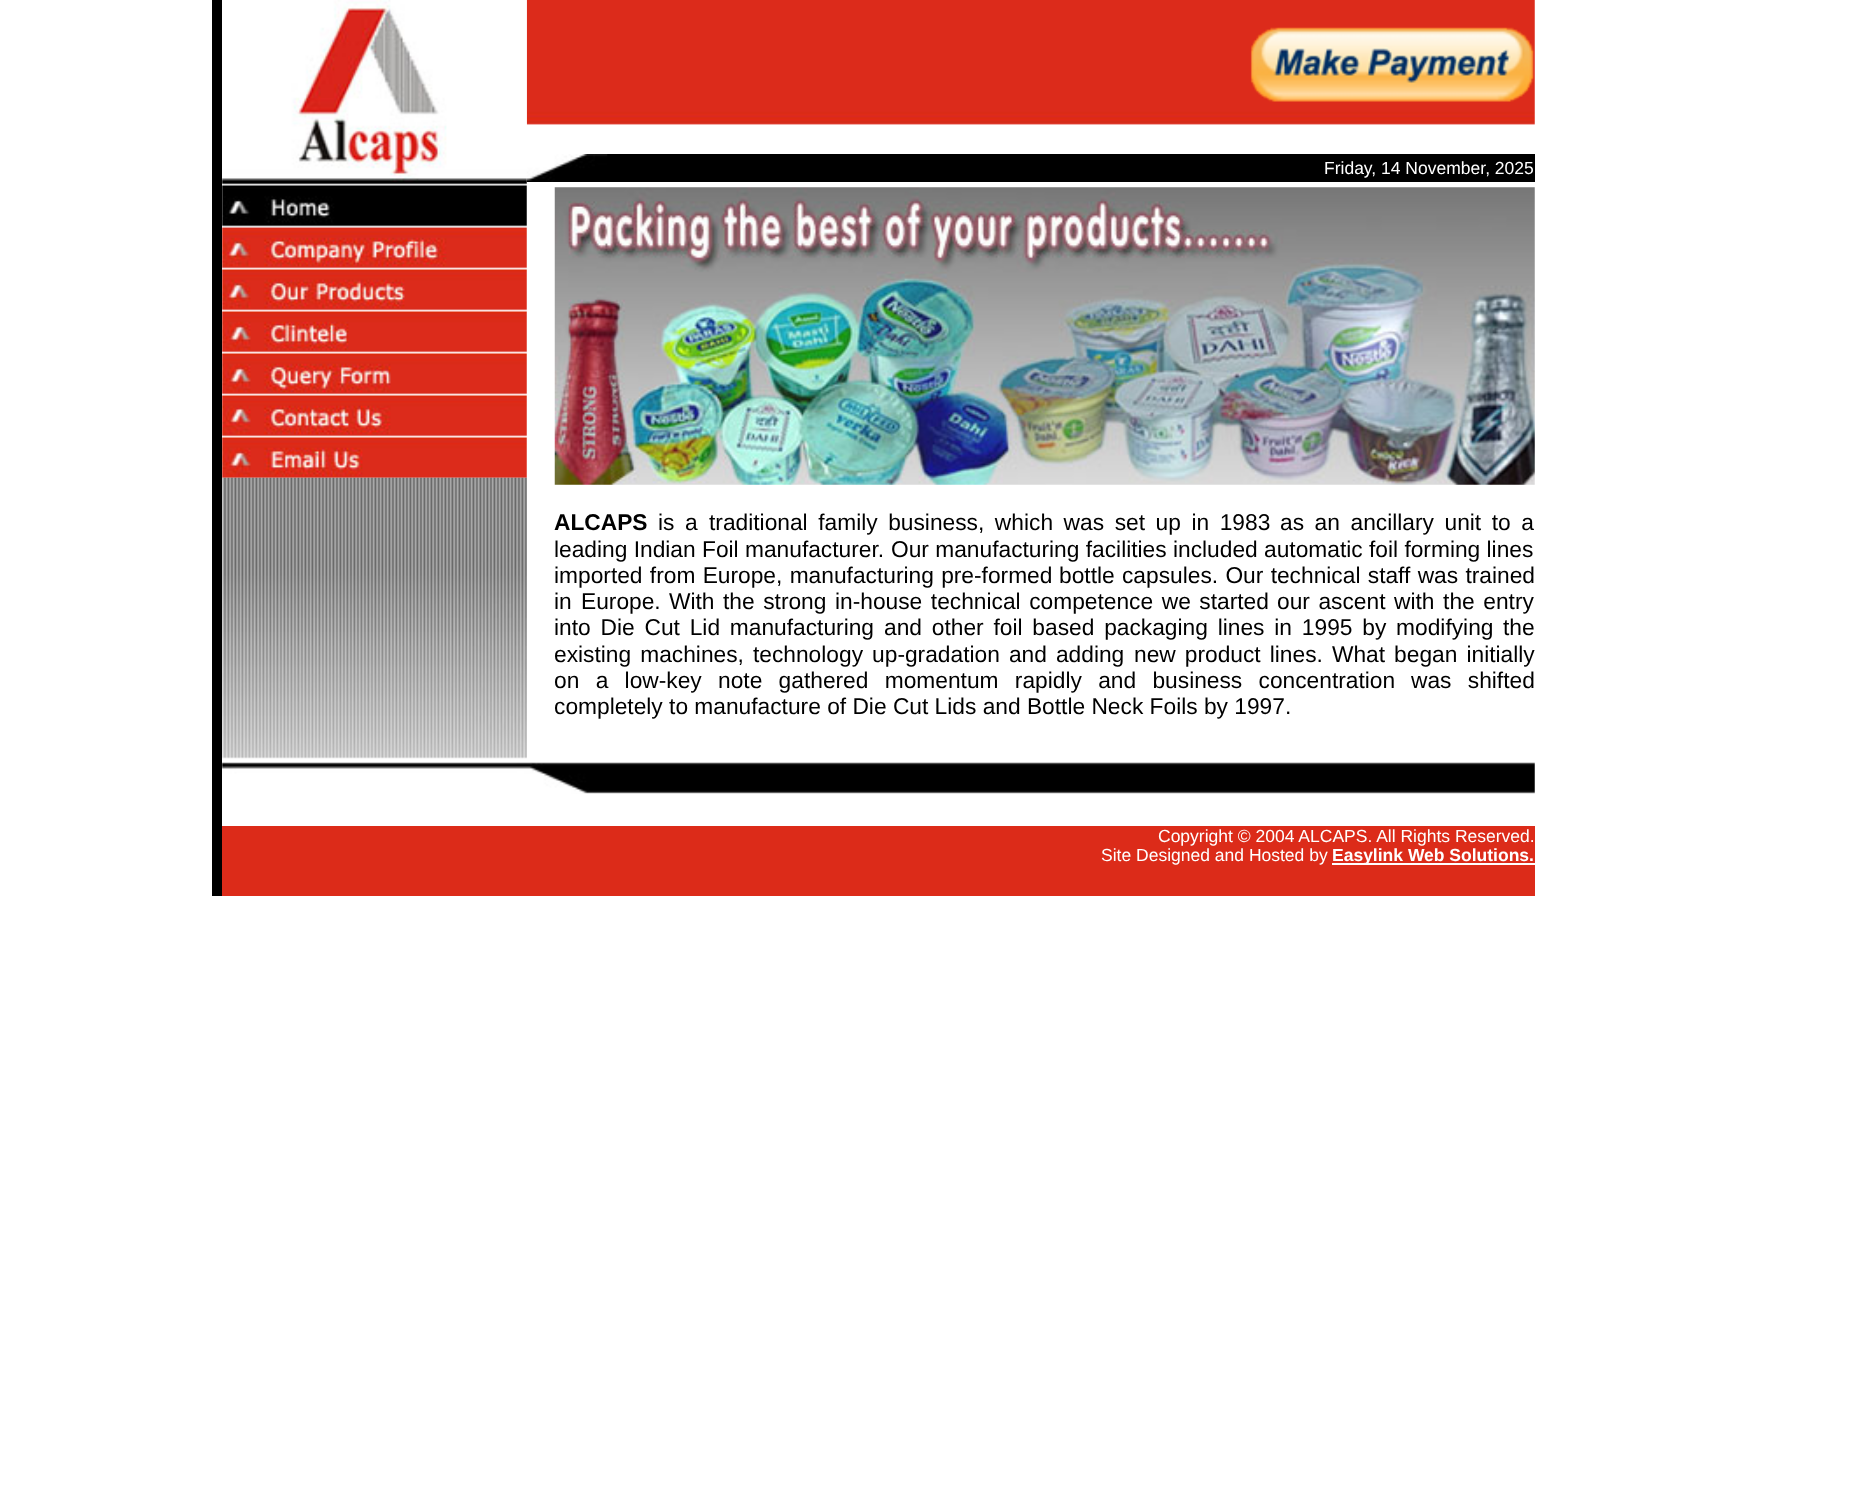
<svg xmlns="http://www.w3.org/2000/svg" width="1861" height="1492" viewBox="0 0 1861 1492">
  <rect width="100%" height="100%" fill="rgb(255,255,255)"/>
  <rect x="212" y="0" width="10" height="896" fill="rgb(0,0,0)"/>
  <image x="526" y="0" width="1009" height="125" href="pic2.png"/>
  <image x="222" y="0" width="305" height="182" href="pic1.png"/>
  <image x="1250" y="27" width="284" height="75" href="pic3.png"/>
  <rect x="607" y="154" width="928" height="28" fill="rgb(0,0,0)"/>
  <image x="526" y="154" width="82" height="28" href="pic4.png"/>
  <text x="1324" y="174" font-family="Liberation Sans" font-size="17.5" fill="rgb(255,255,255)">Friday, 14 November, 2025</text>
  <image x="222" y="182" width="305" height="296" href="pic5.png"/>
  <image x="222" y="477" width="305" height="282" href="pic6.png"/>
  <image x="554" y="187" width="981" height="298" href="pic7.png"/>
  <text x="554" y="530" font-family="Liberation Sans" font-size="22.75" font-weight="bold" fill="rgb(0,0,0)">ALCAPS</text>
  <g font-family="Liberation Sans" font-size="22.75" fill="rgb(0,0,0)">
    <text x="658" y="530" word-spacing="4.25">is a</text>
    <text x="709" y="530" word-spacing="4.25">traditional family business, which was set up in 1983</text>
    <text x="1280" y="530" word-spacing="4.25">as an ancillary unit to a</text>
    <text x="554" y="557">leading Indian Foil manufacturer.</text>
    <text x="891" y="557">Our manufacturing facilities included automatic foil forming lines</text>
    <text x="554" y="583" word-spacing="1">imported from Europe, manufacturing pre-formed</text>
    <text x="1059" y="583" word-spacing="1">bottle capsules. Our technical staff was trained</text>
    <text x="554" y="609">in</text>
    <text x="581" y="609">Europe.</text>
    <text x="669" y="609">With</text>
    <text x="723" y="609" word-spacing="2.25">the strong in-house technical competence we started</text>
    <text x="1277" y="609" word-spacing="2.25">our ascent with the entry</text>
    <text x="554" y="635" word-spacing="3.5">into Die Cut Lid manufacturing</text>
    <text x="884" y="635" word-spacing="3.5">and other foil based packaging lines in 1995 by modifying</text>
    <text x="1503" y="635">the</text>
    <text x="554" y="662" word-spacing="2.75">existing machines, technology up-gradation and adding</text>
    <text x="1134" y="662" word-spacing="2.75">new product lines. What began initially</text>
    <text x="554" y="688" word-spacing="10">on a low-key</text>
    <text x="718" y="688" word-spacing="10">note gathered momentum rapidly and business concentration</text>
    <text x="1411" y="688" word-spacing="10">was shifted</text>
    <text x="554" y="714">completely to manufacture of Die Cut Lids and Bottle Neck Foils by 1997.</text>
  </g>
  <image x="222" y="762" width="1313" height="32" href="pic8.png"/>
  <rect x="222" y="826" width="1313" height="70" fill="rgb(220,43,25)"/>
  <g font-family="Liberation Sans" font-size="17.5" fill="rgb(255,255,255)">
    <text x="1158" y="842">Copyright © 2004 ALCAPS. All Rights Reserved.</text>
    <text x="1101" y="861">Site Designed and Hosted by</text>
  </g>
  <rect x="1332" y="863" width="203" height="2" fill="rgb(255,255,255)"/>
  <text x="1332" y="861" font-family="Liberation Sans" font-size="17.5" font-weight="bold" fill="rgb(255,255,255)">Easylink Web Solutions.</text>
</svg>
